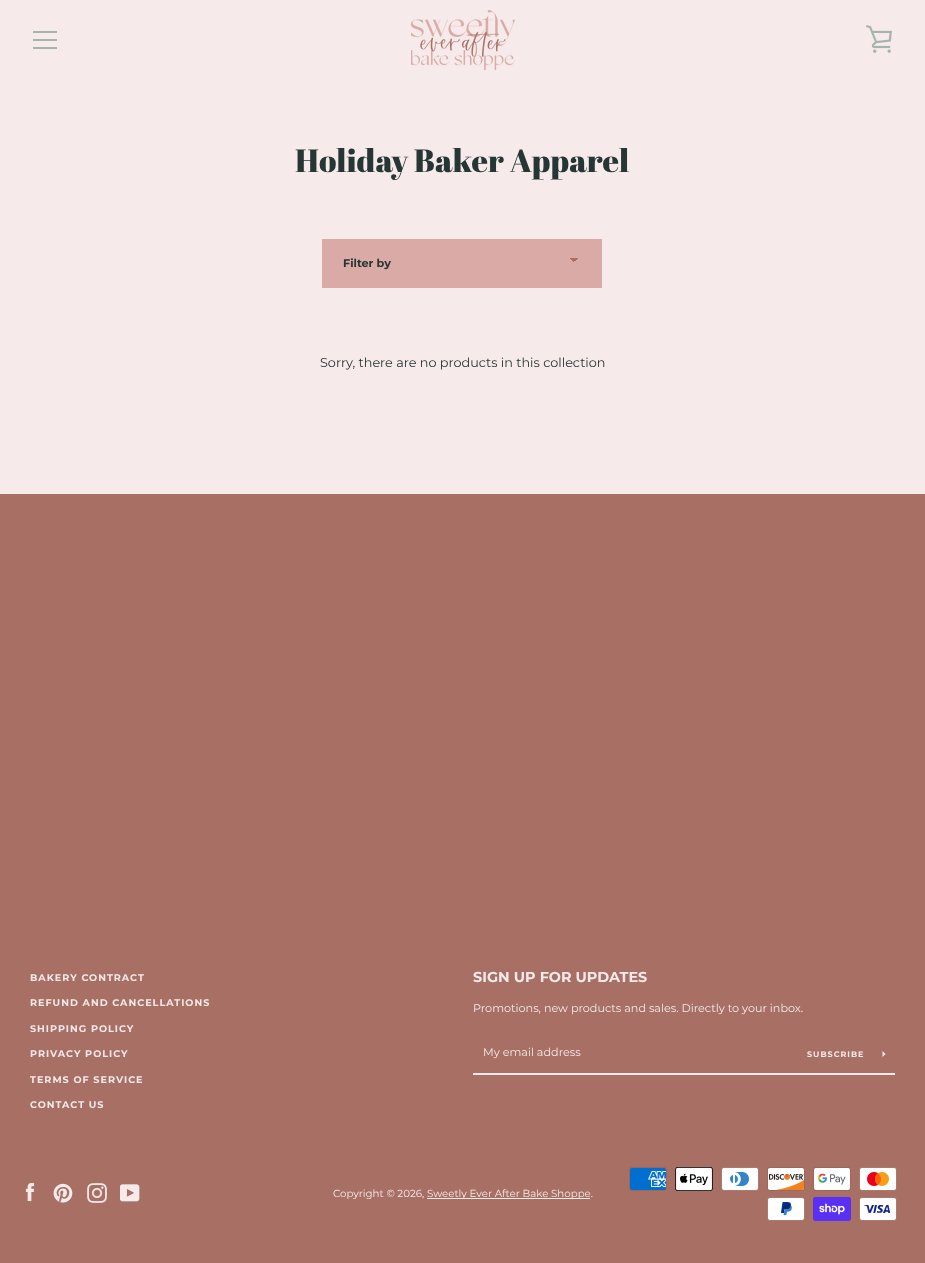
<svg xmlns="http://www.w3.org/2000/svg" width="925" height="1263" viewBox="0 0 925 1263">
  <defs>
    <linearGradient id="g1" gradientUnits="userSpaceOnUse" x1="574" y1="258" x2="578" y2="262"><stop offset="0.5" stop-color="rgb(168,112,101)"/><stop offset="0.5" stop-color="rgb(218,170,166)"/></linearGradient>
    <linearGradient id="g2" gradientUnits="userSpaceOnUse" x1="570" y1="262" x2="574" y2="258"><stop offset="0.5" stop-color="rgb(218,170,166)"/><stop offset="0.5" stop-color="rgb(168,112,101)"/></linearGradient>
  </defs>
  <rect width="100%" height="100%" fill="rgb(168,112,101)"/>
  <rect x="0" y="0" width="925" height="494" fill="rgb(246,234,234)"/>
  <rect x="33" y="31" width="24" height="2" fill="rgb(167,179,174)"/>
  <rect x="33" y="39" width="24" height="2" fill="rgb(167,179,174)"/>
  <rect x="33" y="47" width="24" height="2" fill="rgb(167,179,174)"/>
  <image x="411" y="10" width="104" height="60" href="pic1.png"/>
  <image x="866" y="25" width="26" height="28" href="pic2.png"/>
  <text x="295" y="172" font-family="Abril Fatface" font-size="32" fill="rgb(38,54,52)">Holiday Baker Apparel</text>
  <rect x="322" y="239" width="280" height="49" fill="rgb(218,170,166)"/>
  <rect x="574" y="258" width="4" height="3" fill="url(#g1)"/>
  <rect x="570" y="258" width="4" height="4" fill="url(#g2)"/>
  <text x="343" y="267" font-family="Montserrat" font-size="11.2" font-weight="bold" fill="rgb(38,54,52)">Filter by</text>
  <text x="320" y="367" font-family="Montserrat" font-size="12.8" fill="rgb(38,54,52)">Sorry, there are no products in this collection</text>
  <g font-family="Montserrat" font-size="9.6" font-weight="bold" letter-spacing="1" fill="rgb(246,234,234)">
    <text x="30" y="981">BAKERY CONTRACT</text>
    <text x="30" y="1006">REFUND AND CANCELLATIONS</text>
    <text x="30" y="1032">SHIPPING POLICY</text>
    <text x="30" y="1057">PRIVACY POLICY</text>
    <text x="30" y="1083">TERMS OF SERVICE</text>
    <text x="30" y="1108">CONTACT US</text>
  </g>
  <text x="473" y="982" font-family="Montserrat" font-size="14.4" font-weight="bold" fill="rgb(246,234,234)">SIGN UP FOR UPDATES</text>
  <text x="473" y="1012" font-family="Montserrat" font-size="11.2" fill="rgb(246,234,234)">Promotions, new products and sales. Directly to your inbox.</text>
  <rect x="473" y="1073" width="422" height="2" fill="rgb(246,234,234)"/>
  <text x="483" y="1056" font-family="Montserrat" font-size="11.2" fill="rgb(246,234,234)">My email address</text>
  <text x="807" y="1057" font-family="Montserrat" font-size="8" font-weight="bold" letter-spacing="1" fill="rgb(246,234,234)">SUBSCRIBE</text>
  <path d="M885.5 1054L882.5 1057V1051Z" fill="rgb(246,234,234)"/>
  <image x="25" y="1183" width="10" height="19" href="pic3.png"/>
  <image x="53" y="1183" width="20" height="20" href="pic4.png"/>
  <image x="87" y="1183" width="20" height="20" href="pic5.png"/>
  <image x="120" y="1184" width="20" height="18" href="pic6.png"/>
  <text x="333" y="1197" font-family="Montserrat" font-size="10.25" fill="rgb(246,234,234)">Copyright © 2026,</text>
  <rect x="427" y="1198" width="163" height="1" fill="rgb(246,234,234)"/>
  <text x="427" y="1197" font-family="Montserrat" font-size="10.25" fill="rgb(246,234,234)">Sweetly Ever After Bake Shoppe.</text>
  <image x="629" y="1167" width="38" height="24" href="pic7.png"/>
  <image x="675" y="1167" width="38" height="24" href="pic8.png"/>
  <image x="721" y="1167" width="38" height="24" href="pic9.png"/>
  <image x="767" y="1167" width="38" height="24" href="pic10.png"/>
  <image x="813" y="1167" width="38" height="24" href="pic11.png"/>
  <image x="859" y="1167" width="38" height="24" href="pic12.png"/>
  <image x="767" y="1197" width="38" height="24" href="pic13.png"/>
  <image x="813" y="1197" width="38" height="24" href="pic14.png"/>
  <image x="859" y="1197" width="38" height="24" href="pic15.png"/>
</svg>
